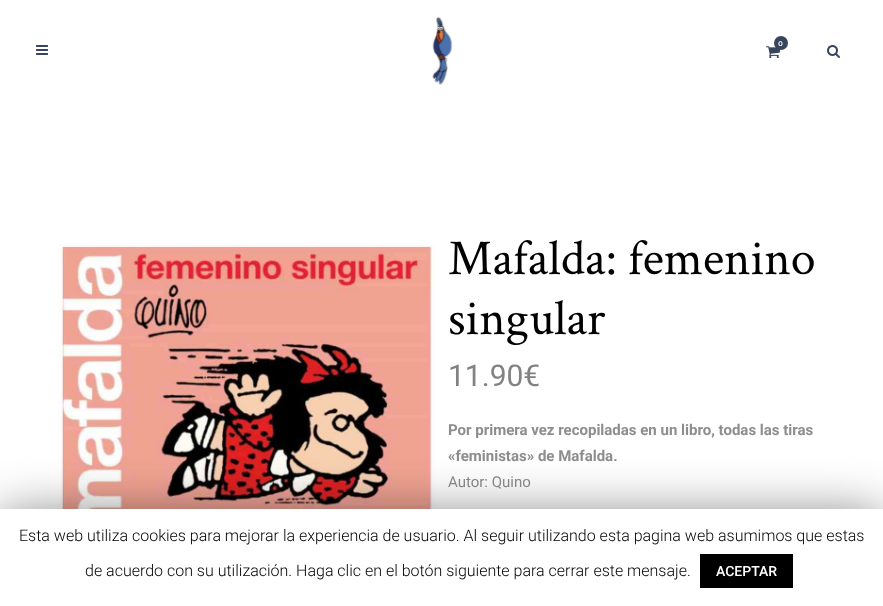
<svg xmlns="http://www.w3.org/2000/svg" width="883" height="606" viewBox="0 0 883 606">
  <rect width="100%" height="100%" fill="rgb(255,255,255)"/>
  <image x="36" y="45" width="12" height="10" href="pic1.png"/>
  <image x="432" y="17" width="21" height="68" href="pic2.png"/>
  <image x="766" y="46" width="14" height="13" href="pic3.png"/>
  <circle cx="781" cy="43" r="7" fill="rgb(55,70,93)"/>
  <text x="778" y="46" font-family="Raleway" font-size="8" font-weight="600" fill="rgb(255,255,255)">0</text>
  <image x="827" y="45" width="13" height="13" href="pic4.png"/>
  <image x="58" y="245" width="377" height="264" href="pic5.png"/>
  <g font-family="Crimson Text" font-size="50" fill="rgb(0,0,0)">
    <text>
      <tspan x="448" y="274">Mafalda: femenino</tspan>
      <tspan x="448" y="334">singular</tspan>
    </text>
  </g>
  <text x="448" y="386" font-family="Roboto" font-size="30" fill="rgb(130,130,130)">11.90€</text>
  <g font-family="Roboto" font-size="15" font-weight="bold" fill="rgb(141,141,141)">
    <text>
      <tspan x="448" y="435">Por primera vez recopiladas en un libro, todas las tiras</tspan>
      <tspan x="448" y="461">«feministas» de Mafalda.</tspan>
    </text>
  </g>
  <text x="448" y="487" font-family="Roboto" font-size="15" fill="rgb(141,141,141)">Autor: Quino</text>
  <rect x="0" y="514" width="883" height="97" fill="rgba(0,0,0,0.5)" filter="blur(25px)"/>
  <rect x="0" y="509" width="883" height="97" fill="rgb(255,255,255)"/>
  <g font-family="Roboto" font-size="16" font-weight="300" fill="rgb(0,0,0)">
    <text x="19" y="541">Esta web utiliza cookies para mejorar la experiencia de usuario. Al seguir utilizando esta pagina web asumimos que estas</text>
    <text x="85" y="576">de acuerdo con su utilización. Haga clic en el botón siguiente para cerrar este mensaje.</text>
  </g>
  <rect x="700" y="554" width="93" height="34" fill="rgb(0,0,0)"/>
  <text x="716" y="576" font-family="Roboto" font-size="14" font-weight="500" fill="rgb(255,255,255)">ACEPTAR</text>
</svg>
